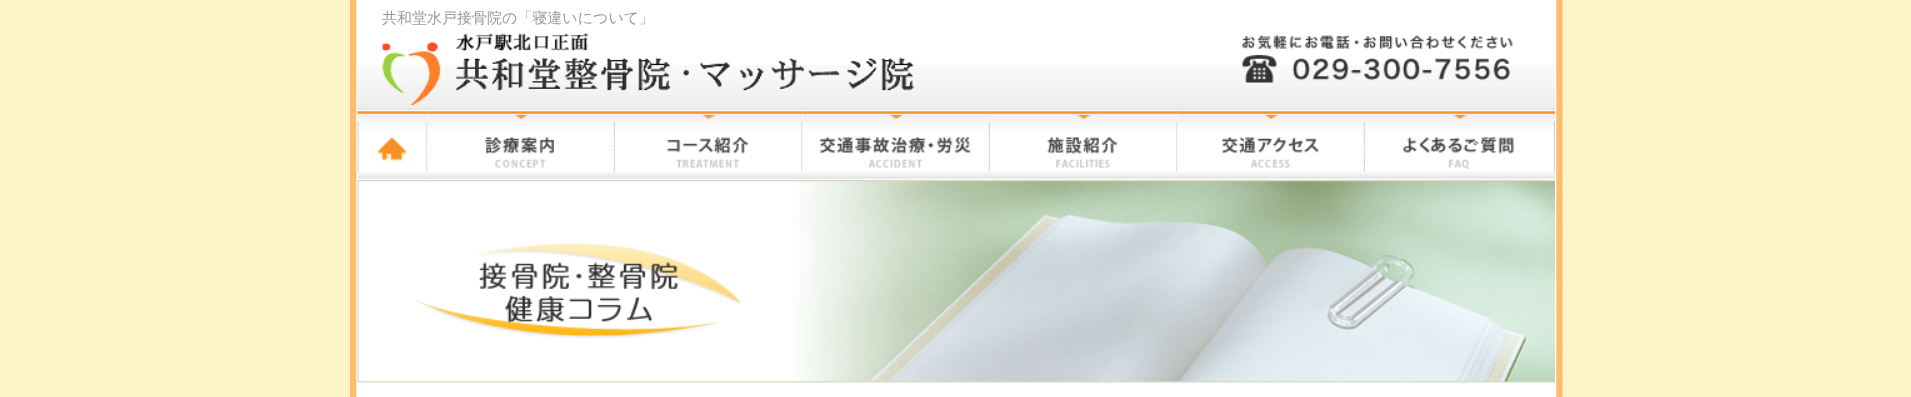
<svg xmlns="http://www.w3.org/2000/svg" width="1911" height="397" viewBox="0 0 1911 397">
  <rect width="100%" height="100%" fill="rgb(251,244,200)"/>
  <image x="350" y="0" width="1213" height="397" href="pic1.png"/>
  <image x="357" y="65" width="1198" height="45" href="pic2.png"/>
  <text x="382" y="23" font-family="WenQuanYi Zen Hei" font-size="15" font-weight="500" fill="rgb(153,153,153)">共和堂水戸接骨院の「寝違いについて」</text>
  <image x="382" y="33" width="532" height="72" href="pic3.png"/>
  <image x="1242" y="35" width="271" height="48" href="pic4.png"/>
  <image x="357" y="111" width="71" height="68" href="pic5.png"/>
  <image x="427" y="111" width="188" height="68" href="pic6.png"/>
  <image x="615" y="111" width="188" height="68" href="pic7.png"/>
  <image x="802" y="111" width="188" height="68" href="pic8.png"/>
  <image x="990" y="111" width="188" height="68" href="pic9.png"/>
  <image x="1177" y="111" width="188" height="68" href="pic10.png"/>
  <image x="1365" y="111" width="190" height="68" href="pic11.png"/>
  <image x="357" y="180" width="1198" height="203" href="pic12.png"/>
  <image x="416" y="243" width="325" height="96" href="pic13.png"/>
</svg>
